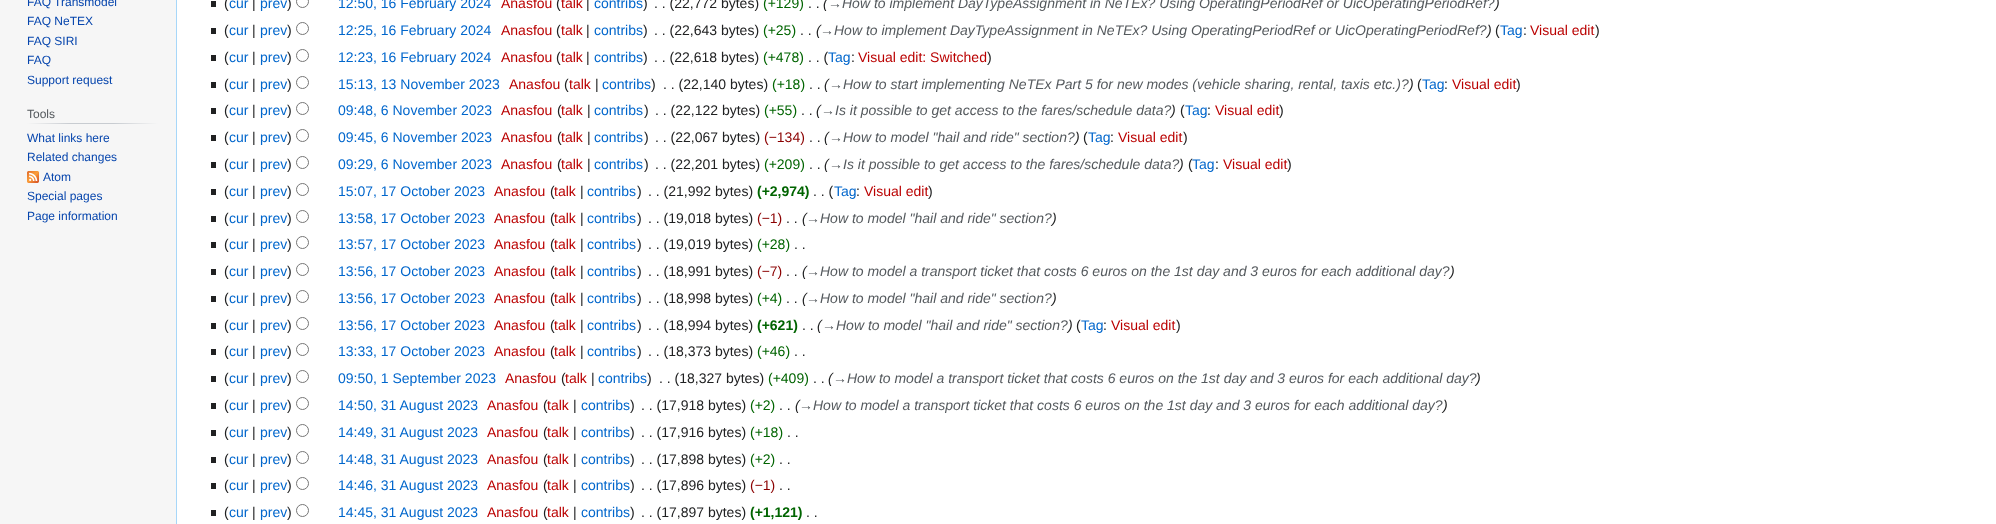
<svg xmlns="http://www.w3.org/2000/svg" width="1996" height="524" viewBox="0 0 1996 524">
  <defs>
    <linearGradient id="g1" gradientUnits="userSpaceOnUse" x1="27" y1="124" x2="158" y2="124"><stop offset="0" stop-color="rgb(246,246,246)"/><stop offset="0.33" stop-color="rgb(200,204,209)"/><stop offset="0.66" stop-color="rgb(200,204,209)"/><stop offset="1" stop-color="rgb(246,246,246)"/></linearGradient>
  </defs>
  <rect width="100%" height="100%" fill="rgb(246,246,246)"/>
  <g font-family="Liberation Sans" font-size="12" fill="rgb(6,69,173)">
    <text>
      <tspan x="27" y="6">FAQ Transmodel</tspan>
      <tspan x="27" y="25">FAQ NeTEX</tspan>
      <tspan x="27" y="45">FAQ SIRI</tspan>
      <tspan x="27" y="64">FAQ</tspan>
      <tspan x="27" y="84">Support request</tspan>
    </text>
  </g>
  <rect x="27" y="123" width="131" height="1" fill="url(#g1)"/>
  <text x="27" y="118" font-family="Liberation Sans" font-size="12" fill="rgb(84,89,93)">Tools</text>
  <g font-family="Liberation Sans" font-size="12" fill="rgb(6,69,173)">
    <text>
      <tspan x="27" y="142">What links here</tspan>
      <tspan x="27" y="161">Related changes</tspan>
    </text>
  </g>
  <image x="27" y="171" width="12" height="12" href="pic1.png"/>
  <g font-family="Liberation Sans" font-size="12" fill="rgb(6,69,173)">
    <text x="43" y="181">Atom</text>
    <text>
      <tspan x="27" y="200">Special pages</tspan>
      <tspan x="27" y="220">Page information</tspan>
    </text>
  </g>
  <rect x="177" y="0" width="1819" height="524" fill="rgb(255,255,255)"/>
  <rect x="176" y="0" width="1" height="524" fill="rgb(167,215,249)"/>
  <rect x="211" y="1" width="5" height="6" fill="rgb(32,33,34)"/>
  <text x="224" y="8" font-family="Liberation Sans" font-size="14" fill="rgb(32,33,34)">(</text>
  <text x="229" y="8" font-family="Liberation Sans" font-size="14" fill="rgb(0,102,204)">cur</text>
  <text x="252" y="8" font-family="Liberation Sans" font-size="14" fill="rgb(32,33,34)">|</text>
  <text x="260" y="8" font-family="Liberation Sans" font-size="14" fill="rgb(0,102,204)">prev</text>
  <text x="287" y="8" font-family="Liberation Sans" font-size="14" fill="rgb(32,33,34)">)</text>
  <circle cx="302.5" cy="1.5" r="6" fill="none" stroke="rgb(118,118,118)"/>
  <text x="338" y="8" font-family="Liberation Sans" font-size="14" fill="rgb(0,102,204)">12:50, 16 February 2024</text>
  <text x="501" y="8" font-family="Liberation Sans" font-size="14" fill="rgb(186,0,0)">Anasfou</text>
  <text x="556" y="8" font-family="Liberation Sans" font-size="14" fill="rgb(32,33,34)">(</text>
  <text x="561" y="8" font-family="Liberation Sans" font-size="14" fill="rgb(186,0,0)">talk</text>
  <text x="586" y="8" font-family="Liberation Sans" font-size="14" fill="rgb(32,33,34)">|</text>
  <text x="594" y="8" font-family="Liberation Sans" font-size="14" fill="rgb(0,102,204)">contribs</text>
  <g font-family="Liberation Sans" font-size="14" fill="rgb(32,33,34)">
    <text x="643" y="8">)</text>
    <text x="654" y="8">. . (22,772 bytes)</text>
  </g>
  <text x="763" y="8" font-family="Liberation Sans" font-size="14" fill="rgb(0,100,0)">(+129)</text>
  <text x="808" y="8" font-family="Liberation Sans" font-size="14" fill="rgb(32,33,34)">. .</text>
  <text x="823" y="8" font-family="Liberation Sans" font-size="14" font-style="italic" fill="rgb(32,33,34)">(</text>
  <text x="828" y="8" font-family="Liberation Sans" font-size="14" font-style="italic" fill="rgb(84,89,93)">→How to implement DayTypeAssignment in NeTEx? Using OperatingPeriodRef or UicOperatingPeriodRef?</text>
  <text x="1495" y="8" font-family="Liberation Sans" font-size="14" font-style="italic" fill="rgb(32,33,34)">)</text>
  <rect x="211" y="28" width="5" height="6" fill="rgb(32,33,34)"/>
  <text x="224" y="35" font-family="Liberation Sans" font-size="14" fill="rgb(32,33,34)">(</text>
  <text x="229" y="35" font-family="Liberation Sans" font-size="14" fill="rgb(0,102,204)">cur</text>
  <text x="252" y="35" font-family="Liberation Sans" font-size="14" fill="rgb(32,33,34)">|</text>
  <text x="260" y="35" font-family="Liberation Sans" font-size="14" fill="rgb(0,102,204)">prev</text>
  <text x="287" y="35" font-family="Liberation Sans" font-size="14" fill="rgb(32,33,34)">)</text>
  <circle cx="302.5" cy="28.5" r="6" fill="none" stroke="rgb(118,118,118)"/>
  <text x="338" y="35" font-family="Liberation Sans" font-size="14" fill="rgb(0,102,204)">12:25, 16 February 2024</text>
  <text x="501" y="35" font-family="Liberation Sans" font-size="14" fill="rgb(186,0,0)">Anasfou</text>
  <text x="556" y="35" font-family="Liberation Sans" font-size="14" fill="rgb(32,33,34)">(</text>
  <text x="561" y="35" font-family="Liberation Sans" font-size="14" fill="rgb(186,0,0)">talk</text>
  <text x="586" y="35" font-family="Liberation Sans" font-size="14" fill="rgb(32,33,34)">|</text>
  <text x="594" y="35" font-family="Liberation Sans" font-size="14" fill="rgb(0,102,204)">contribs</text>
  <g font-family="Liberation Sans" font-size="14" fill="rgb(32,33,34)">
    <text x="643" y="35">)</text>
    <text x="654" y="35">. . (22,643 bytes)</text>
  </g>
  <text x="763" y="35" font-family="Liberation Sans" font-size="14" fill="rgb(0,100,0)">(+25)</text>
  <text x="800" y="35" font-family="Liberation Sans" font-size="14" fill="rgb(32,33,34)">. .</text>
  <text x="816" y="35" font-family="Liberation Sans" font-size="14" font-style="italic" fill="rgb(32,33,34)">(</text>
  <text x="820" y="35" font-family="Liberation Sans" font-size="14" font-style="italic" fill="rgb(84,89,93)">→How to implement DayTypeAssignment in NeTEx? Using OperatingPeriodRef or UicOperatingPeriodRef?</text>
  <text x="1487" y="35" font-family="Liberation Sans" font-size="14" font-style="italic" fill="rgb(32,33,34)">)</text>
  <text x="1495" y="35" font-family="Liberation Sans" font-size="14" fill="rgb(32,33,34)">(</text>
  <text x="1500" y="35" font-family="Liberation Sans" font-size="14" fill="rgb(0,102,204)">Tag</text>
  <text x="1523" y="35" font-family="Liberation Sans" font-size="14" fill="rgb(32,33,34)">:</text>
  <text x="1530" y="35" font-family="Liberation Sans" font-size="14" fill="rgb(186,0,0)">Visual edit</text>
  <text x="1595" y="35" font-family="Liberation Sans" font-size="14" fill="rgb(32,33,34)">)</text>
  <rect x="211" y="55" width="5" height="6" fill="rgb(32,33,34)"/>
  <text x="224" y="62" font-family="Liberation Sans" font-size="14" fill="rgb(32,33,34)">(</text>
  <text x="229" y="62" font-family="Liberation Sans" font-size="14" fill="rgb(0,102,204)">cur</text>
  <text x="252" y="62" font-family="Liberation Sans" font-size="14" fill="rgb(32,33,34)">|</text>
  <text x="260" y="62" font-family="Liberation Sans" font-size="14" fill="rgb(0,102,204)">prev</text>
  <text x="287" y="62" font-family="Liberation Sans" font-size="14" fill="rgb(32,33,34)">)</text>
  <circle cx="302.5" cy="55.5" r="6" fill="none" stroke="rgb(118,118,118)"/>
  <text x="338" y="62" font-family="Liberation Sans" font-size="14" fill="rgb(0,102,204)">12:23, 16 February 2024</text>
  <text x="501" y="62" font-family="Liberation Sans" font-size="14" fill="rgb(186,0,0)">Anasfou</text>
  <text x="556" y="62" font-family="Liberation Sans" font-size="14" fill="rgb(32,33,34)">(</text>
  <text x="561" y="62" font-family="Liberation Sans" font-size="14" fill="rgb(186,0,0)">talk</text>
  <text x="586" y="62" font-family="Liberation Sans" font-size="14" fill="rgb(32,33,34)">|</text>
  <text x="594" y="62" font-family="Liberation Sans" font-size="14" fill="rgb(0,102,204)">contribs</text>
  <g font-family="Liberation Sans" font-size="14" fill="rgb(32,33,34)">
    <text x="643" y="62">)</text>
    <text x="654" y="62">. . (22,618 bytes)</text>
  </g>
  <text x="763" y="62" font-family="Liberation Sans" font-size="14" fill="rgb(0,100,0)">(+478)</text>
  <text x="808" y="62" font-family="Liberation Sans" font-size="14" fill="rgb(32,33,34)">. . (</text>
  <text x="828" y="62" font-family="Liberation Sans" font-size="14" fill="rgb(0,102,204)">Tag</text>
  <text x="851" y="62" font-family="Liberation Sans" font-size="14" fill="rgb(32,33,34)">:</text>
  <text x="858" y="62" font-family="Liberation Sans" font-size="14" fill="rgb(186,0,0)">Visual edit: Switched</text>
  <text x="987" y="62" font-family="Liberation Sans" font-size="14" fill="rgb(32,33,34)">)</text>
  <rect x="211" y="82" width="5" height="6" fill="rgb(32,33,34)"/>
  <text x="224" y="89" font-family="Liberation Sans" font-size="14" fill="rgb(32,33,34)">(</text>
  <text x="229" y="89" font-family="Liberation Sans" font-size="14" fill="rgb(0,102,204)">cur</text>
  <text x="252" y="89" font-family="Liberation Sans" font-size="14" fill="rgb(32,33,34)">|</text>
  <text x="260" y="89" font-family="Liberation Sans" font-size="14" fill="rgb(0,102,204)">prev</text>
  <text x="287" y="89" font-family="Liberation Sans" font-size="14" fill="rgb(32,33,34)">)</text>
  <circle cx="302.5" cy="82.5" r="6" fill="none" stroke="rgb(118,118,118)"/>
  <text x="338" y="89" font-family="Liberation Sans" font-size="14" fill="rgb(0,102,204)">15:13, 13 November 2023</text>
  <text x="509" y="89" font-family="Liberation Sans" font-size="14" fill="rgb(186,0,0)">Anasfou</text>
  <text x="564" y="89" font-family="Liberation Sans" font-size="14" fill="rgb(32,33,34)">(</text>
  <text x="569" y="89" font-family="Liberation Sans" font-size="14" fill="rgb(186,0,0)">talk</text>
  <text x="595" y="89" font-family="Liberation Sans" font-size="14" fill="rgb(32,33,34)">|</text>
  <text x="602" y="89" font-family="Liberation Sans" font-size="14" fill="rgb(0,102,204)">contribs</text>
  <g font-family="Liberation Sans" font-size="14" fill="rgb(32,33,34)">
    <text x="651" y="89">)</text>
    <text x="663" y="89">. . (22,140 bytes)</text>
  </g>
  <text x="772" y="89" font-family="Liberation Sans" font-size="14" fill="rgb(0,100,0)">(+18)</text>
  <text x="809" y="89" font-family="Liberation Sans" font-size="14" fill="rgb(32,33,34)">. .</text>
  <text x="824" y="89" font-family="Liberation Sans" font-size="14" font-style="italic" fill="rgb(32,33,34)">(</text>
  <text x="829" y="89" font-family="Liberation Sans" font-size="14" font-style="italic" fill="rgb(84,89,93)">→How to start implementing NeTEx Part 5 for new modes (vehicle sharing, rental, taxis etc.)?</text>
  <text x="1409" y="89" font-family="Liberation Sans" font-size="14" font-style="italic" fill="rgb(32,33,34)">)</text>
  <text x="1417" y="89" font-family="Liberation Sans" font-size="14" fill="rgb(32,33,34)">(</text>
  <text x="1422" y="89" font-family="Liberation Sans" font-size="14" fill="rgb(0,102,204)">Tag</text>
  <text x="1444" y="89" font-family="Liberation Sans" font-size="14" fill="rgb(32,33,34)">:</text>
  <text x="1452" y="89" font-family="Liberation Sans" font-size="14" fill="rgb(186,0,0)">Visual edit</text>
  <text x="1516" y="89" font-family="Liberation Sans" font-size="14" fill="rgb(32,33,34)">)</text>
  <rect x="211" y="108" width="5" height="6" fill="rgb(32,33,34)"/>
  <text x="224" y="115" font-family="Liberation Sans" font-size="14" fill="rgb(32,33,34)">(</text>
  <text x="229" y="115" font-family="Liberation Sans" font-size="14" fill="rgb(0,102,204)">cur</text>
  <text x="252" y="115" font-family="Liberation Sans" font-size="14" fill="rgb(32,33,34)">|</text>
  <text x="260" y="115" font-family="Liberation Sans" font-size="14" fill="rgb(0,102,204)">prev</text>
  <text x="287" y="115" font-family="Liberation Sans" font-size="14" fill="rgb(32,33,34)">)</text>
  <circle cx="302.5" cy="108.5" r="6" fill="none" stroke="rgb(118,118,118)"/>
  <text x="338" y="115" font-family="Liberation Sans" font-size="14" fill="rgb(0,102,204)">09:48, 6 November 2023</text>
  <text x="501" y="115" font-family="Liberation Sans" font-size="14" fill="rgb(186,0,0)">Anasfou</text>
  <text x="557" y="115" font-family="Liberation Sans" font-size="14" fill="rgb(32,33,34)">(</text>
  <text x="561" y="115" font-family="Liberation Sans" font-size="14" fill="rgb(186,0,0)">talk</text>
  <text x="587" y="115" font-family="Liberation Sans" font-size="14" fill="rgb(32,33,34)">|</text>
  <text x="594" y="115" font-family="Liberation Sans" font-size="14" fill="rgb(0,102,204)">contribs</text>
  <g font-family="Liberation Sans" font-size="14" fill="rgb(32,33,34)">
    <text x="644" y="115">)</text>
    <text x="655" y="115">. . (22,122 bytes)</text>
  </g>
  <text x="764" y="115" font-family="Liberation Sans" font-size="14" fill="rgb(0,100,0)">(+55)</text>
  <text x="801" y="115" font-family="Liberation Sans" font-size="14" fill="rgb(32,33,34)">. .</text>
  <text x="816" y="115" font-family="Liberation Sans" font-size="14" font-style="italic" fill="rgb(32,33,34)">(</text>
  <text x="821" y="115" font-family="Liberation Sans" font-size="14" font-style="italic" fill="rgb(84,89,93)">→Is it possible to get access to the fares/schedule data?</text>
  <text x="1171" y="115" font-family="Liberation Sans" font-size="14" font-style="italic" fill="rgb(32,33,34)">)</text>
  <text x="1180" y="115" font-family="Liberation Sans" font-size="14" fill="rgb(32,33,34)">(</text>
  <text x="1185" y="115" font-family="Liberation Sans" font-size="14" fill="rgb(0,102,204)">Tag</text>
  <text x="1207" y="115" font-family="Liberation Sans" font-size="14" fill="rgb(32,33,34)">:</text>
  <text x="1215" y="115" font-family="Liberation Sans" font-size="14" fill="rgb(186,0,0)">Visual edit</text>
  <text x="1279" y="115" font-family="Liberation Sans" font-size="14" fill="rgb(32,33,34)">)</text>
  <rect x="211" y="135" width="5" height="6" fill="rgb(32,33,34)"/>
  <text x="224" y="142" font-family="Liberation Sans" font-size="14" fill="rgb(32,33,34)">(</text>
  <text x="229" y="142" font-family="Liberation Sans" font-size="14" fill="rgb(0,102,204)">cur</text>
  <text x="252" y="142" font-family="Liberation Sans" font-size="14" fill="rgb(32,33,34)">|</text>
  <text x="260" y="142" font-family="Liberation Sans" font-size="14" fill="rgb(0,102,204)">prev</text>
  <text x="287" y="142" font-family="Liberation Sans" font-size="14" fill="rgb(32,33,34)">)</text>
  <circle cx="302.5" cy="135.5" r="6" fill="none" stroke="rgb(118,118,118)"/>
  <text x="338" y="142" font-family="Liberation Sans" font-size="14" fill="rgb(0,102,204)">09:45, 6 November 2023</text>
  <text x="501" y="142" font-family="Liberation Sans" font-size="14" fill="rgb(186,0,0)">Anasfou</text>
  <text x="557" y="142" font-family="Liberation Sans" font-size="14" fill="rgb(32,33,34)">(</text>
  <text x="561" y="142" font-family="Liberation Sans" font-size="14" fill="rgb(186,0,0)">talk</text>
  <text x="587" y="142" font-family="Liberation Sans" font-size="14" fill="rgb(32,33,34)">|</text>
  <text x="594" y="142" font-family="Liberation Sans" font-size="14" fill="rgb(0,102,204)">contribs</text>
  <g font-family="Liberation Sans" font-size="14" fill="rgb(32,33,34)">
    <text x="644" y="142">)</text>
    <text x="655" y="142">. . (22,067 bytes)</text>
  </g>
  <text x="764" y="142" font-family="Liberation Sans" font-size="14" fill="rgb(139,0,0)">(−134)</text>
  <text x="809" y="142" font-family="Liberation Sans" font-size="14" fill="rgb(32,33,34)">. .</text>
  <text x="824" y="142" font-family="Liberation Sans" font-size="14" font-style="italic" fill="rgb(32,33,34)">(</text>
  <text x="829" y="142" font-family="Liberation Sans" font-size="14" font-style="italic" fill="rgb(84,89,93)">→How to model "hail and ride" section?</text>
  <text x="1075" y="142" font-family="Liberation Sans" font-size="14" font-style="italic" fill="rgb(32,33,34)">)</text>
  <text x="1083" y="142" font-family="Liberation Sans" font-size="14" fill="rgb(32,33,34)">(</text>
  <text x="1088" y="142" font-family="Liberation Sans" font-size="14" fill="rgb(0,102,204)">Tag</text>
  <text x="1110" y="142" font-family="Liberation Sans" font-size="14" fill="rgb(32,33,34)">:</text>
  <text x="1118" y="142" font-family="Liberation Sans" font-size="14" fill="rgb(186,0,0)">Visual edit</text>
  <text x="1183" y="142" font-family="Liberation Sans" font-size="14" fill="rgb(32,33,34)">)</text>
  <rect x="211" y="162" width="5" height="6" fill="rgb(32,33,34)"/>
  <text x="224" y="169" font-family="Liberation Sans" font-size="14" fill="rgb(32,33,34)">(</text>
  <text x="229" y="169" font-family="Liberation Sans" font-size="14" fill="rgb(0,102,204)">cur</text>
  <text x="252" y="169" font-family="Liberation Sans" font-size="14" fill="rgb(32,33,34)">|</text>
  <text x="260" y="169" font-family="Liberation Sans" font-size="14" fill="rgb(0,102,204)">prev</text>
  <text x="287" y="169" font-family="Liberation Sans" font-size="14" fill="rgb(32,33,34)">)</text>
  <circle cx="302.5" cy="162.5" r="6" fill="none" stroke="rgb(118,118,118)"/>
  <text x="338" y="169" font-family="Liberation Sans" font-size="14" fill="rgb(0,102,204)">09:29, 6 November 2023</text>
  <text x="501" y="169" font-family="Liberation Sans" font-size="14" fill="rgb(186,0,0)">Anasfou</text>
  <text x="557" y="169" font-family="Liberation Sans" font-size="14" fill="rgb(32,33,34)">(</text>
  <text x="561" y="169" font-family="Liberation Sans" font-size="14" fill="rgb(186,0,0)">talk</text>
  <text x="587" y="169" font-family="Liberation Sans" font-size="14" fill="rgb(32,33,34)">|</text>
  <text x="594" y="169" font-family="Liberation Sans" font-size="14" fill="rgb(0,102,204)">contribs</text>
  <g font-family="Liberation Sans" font-size="14" fill="rgb(32,33,34)">
    <text x="644" y="169">)</text>
    <text x="655" y="169">. . (22,201 bytes)</text>
  </g>
  <text x="764" y="169" font-family="Liberation Sans" font-size="14" fill="rgb(0,100,0)">(+209)</text>
  <text x="809" y="169" font-family="Liberation Sans" font-size="14" fill="rgb(32,33,34)">. .</text>
  <text x="824" y="169" font-family="Liberation Sans" font-size="14" font-style="italic" fill="rgb(32,33,34)">(</text>
  <text x="829" y="169" font-family="Liberation Sans" font-size="14" font-style="italic" fill="rgb(84,89,93)">→Is it possible to get access to the fares/schedule data?</text>
  <text x="1179" y="169" font-family="Liberation Sans" font-size="14" font-style="italic" fill="rgb(32,33,34)">)</text>
  <text x="1188" y="169" font-family="Liberation Sans" font-size="14" fill="rgb(32,33,34)">(</text>
  <text x="1192" y="169" font-family="Liberation Sans" font-size="14" fill="rgb(0,102,204)">Tag</text>
  <text x="1215" y="169" font-family="Liberation Sans" font-size="14" fill="rgb(32,33,34)">:</text>
  <text x="1223" y="169" font-family="Liberation Sans" font-size="14" fill="rgb(186,0,0)">Visual edit</text>
  <text x="1287" y="169" font-family="Liberation Sans" font-size="14" fill="rgb(32,33,34)">)</text>
  <rect x="211" y="189" width="5" height="6" fill="rgb(32,33,34)"/>
  <text x="224" y="196" font-family="Liberation Sans" font-size="14" fill="rgb(32,33,34)">(</text>
  <text x="229" y="196" font-family="Liberation Sans" font-size="14" fill="rgb(0,102,204)">cur</text>
  <text x="252" y="196" font-family="Liberation Sans" font-size="14" fill="rgb(32,33,34)">|</text>
  <text x="260" y="196" font-family="Liberation Sans" font-size="14" fill="rgb(0,102,204)">prev</text>
  <text x="287" y="196" font-family="Liberation Sans" font-size="14" fill="rgb(32,33,34)">)</text>
  <circle cx="302.5" cy="189.5" r="6" fill="none" stroke="rgb(118,118,118)"/>
  <text x="338" y="196" font-family="Liberation Sans" font-size="14" fill="rgb(0,102,204)">15:07, 17 October 2023</text>
  <text x="494" y="196" font-family="Liberation Sans" font-size="14" fill="rgb(186,0,0)">Anasfou</text>
  <text x="550" y="196" font-family="Liberation Sans" font-size="14" fill="rgb(32,33,34)">(</text>
  <text x="554" y="196" font-family="Liberation Sans" font-size="14" fill="rgb(186,0,0)">talk</text>
  <text x="580" y="196" font-family="Liberation Sans" font-size="14" fill="rgb(32,33,34)">|</text>
  <text x="587" y="196" font-family="Liberation Sans" font-size="14" fill="rgb(0,102,204)">contribs</text>
  <g font-family="Liberation Sans" font-size="14" fill="rgb(32,33,34)">
    <text x="637" y="196">)</text>
    <text x="648" y="196">. . (21,992 bytes)</text>
  </g>
  <text x="757" y="196" font-family="Liberation Sans" font-size="14" font-weight="bold" fill="rgb(0,100,0)">(+2,974)</text>
  <text x="813" y="196" font-family="Liberation Sans" font-size="14" fill="rgb(32,33,34)">. . (</text>
  <text x="834" y="196" font-family="Liberation Sans" font-size="14" fill="rgb(0,102,204)">Tag</text>
  <text x="856" y="196" font-family="Liberation Sans" font-size="14" fill="rgb(32,33,34)">:</text>
  <text x="864" y="196" font-family="Liberation Sans" font-size="14" fill="rgb(186,0,0)">Visual edit</text>
  <text x="928" y="196" font-family="Liberation Sans" font-size="14" fill="rgb(32,33,34)">)</text>
  <rect x="211" y="216" width="5" height="6" fill="rgb(32,33,34)"/>
  <text x="224" y="223" font-family="Liberation Sans" font-size="14" fill="rgb(32,33,34)">(</text>
  <text x="229" y="223" font-family="Liberation Sans" font-size="14" fill="rgb(0,102,204)">cur</text>
  <text x="252" y="223" font-family="Liberation Sans" font-size="14" fill="rgb(32,33,34)">|</text>
  <text x="260" y="223" font-family="Liberation Sans" font-size="14" fill="rgb(0,102,204)">prev</text>
  <text x="287" y="223" font-family="Liberation Sans" font-size="14" fill="rgb(32,33,34)">)</text>
  <circle cx="302.5" cy="216.5" r="6" fill="none" stroke="rgb(118,118,118)"/>
  <text x="338" y="223" font-family="Liberation Sans" font-size="14" fill="rgb(0,102,204)">13:58, 17 October 2023</text>
  <text x="494" y="223" font-family="Liberation Sans" font-size="14" fill="rgb(186,0,0)">Anasfou</text>
  <text x="550" y="223" font-family="Liberation Sans" font-size="14" fill="rgb(32,33,34)">(</text>
  <text x="554" y="223" font-family="Liberation Sans" font-size="14" fill="rgb(186,0,0)">talk</text>
  <text x="580" y="223" font-family="Liberation Sans" font-size="14" fill="rgb(32,33,34)">|</text>
  <text x="587" y="223" font-family="Liberation Sans" font-size="14" fill="rgb(0,102,204)">contribs</text>
  <g font-family="Liberation Sans" font-size="14" fill="rgb(32,33,34)">
    <text x="637" y="223">)</text>
    <text x="648" y="223">. . (19,018 bytes)</text>
  </g>
  <text x="757" y="223" font-family="Liberation Sans" font-size="14" fill="rgb(139,0,0)">(−1)</text>
  <text x="786" y="223" font-family="Liberation Sans" font-size="14" fill="rgb(32,33,34)">. .</text>
  <text x="802" y="223" font-family="Liberation Sans" font-size="14" font-style="italic" fill="rgb(32,33,34)">(</text>
  <text x="806" y="223" font-family="Liberation Sans" font-size="14" font-style="italic" fill="rgb(84,89,93)">→How to model "hail and ride" section?</text>
  <text x="1052" y="223" font-family="Liberation Sans" font-size="14" font-style="italic" fill="rgb(32,33,34)">)</text>
  <rect x="211" y="242" width="5" height="6" fill="rgb(32,33,34)"/>
  <text x="224" y="249" font-family="Liberation Sans" font-size="14" fill="rgb(32,33,34)">(</text>
  <text x="229" y="249" font-family="Liberation Sans" font-size="14" fill="rgb(0,102,204)">cur</text>
  <text x="252" y="249" font-family="Liberation Sans" font-size="14" fill="rgb(32,33,34)">|</text>
  <text x="260" y="249" font-family="Liberation Sans" font-size="14" fill="rgb(0,102,204)">prev</text>
  <text x="287" y="249" font-family="Liberation Sans" font-size="14" fill="rgb(32,33,34)">)</text>
  <circle cx="302.5" cy="242.5" r="6" fill="none" stroke="rgb(118,118,118)"/>
  <text x="338" y="249" font-family="Liberation Sans" font-size="14" fill="rgb(0,102,204)">13:57, 17 October 2023</text>
  <text x="494" y="249" font-family="Liberation Sans" font-size="14" fill="rgb(186,0,0)">Anasfou</text>
  <text x="550" y="249" font-family="Liberation Sans" font-size="14" fill="rgb(32,33,34)">(</text>
  <text x="554" y="249" font-family="Liberation Sans" font-size="14" fill="rgb(186,0,0)">talk</text>
  <text x="580" y="249" font-family="Liberation Sans" font-size="14" fill="rgb(32,33,34)">|</text>
  <text x="587" y="249" font-family="Liberation Sans" font-size="14" fill="rgb(0,102,204)">contribs</text>
  <g font-family="Liberation Sans" font-size="14" fill="rgb(32,33,34)">
    <text x="637" y="249">)</text>
    <text x="648" y="249">. . (19,019 bytes)</text>
  </g>
  <text x="757" y="249" font-family="Liberation Sans" font-size="14" fill="rgb(0,100,0)">(+28)</text>
  <text x="794" y="249" font-family="Liberation Sans" font-size="14" fill="rgb(32,33,34)">. .</text>
  <rect x="211" y="269" width="5" height="6" fill="rgb(32,33,34)"/>
  <text x="224" y="276" font-family="Liberation Sans" font-size="14" fill="rgb(32,33,34)">(</text>
  <text x="229" y="276" font-family="Liberation Sans" font-size="14" fill="rgb(0,102,204)">cur</text>
  <text x="252" y="276" font-family="Liberation Sans" font-size="14" fill="rgb(32,33,34)">|</text>
  <text x="260" y="276" font-family="Liberation Sans" font-size="14" fill="rgb(0,102,204)">prev</text>
  <text x="287" y="276" font-family="Liberation Sans" font-size="14" fill="rgb(32,33,34)">)</text>
  <circle cx="302.5" cy="269.5" r="6" fill="none" stroke="rgb(118,118,118)"/>
  <text x="338" y="276" font-family="Liberation Sans" font-size="14" fill="rgb(0,102,204)">13:56, 17 October 2023</text>
  <text x="494" y="276" font-family="Liberation Sans" font-size="14" fill="rgb(186,0,0)">Anasfou</text>
  <text x="550" y="276" font-family="Liberation Sans" font-size="14" fill="rgb(32,33,34)">(</text>
  <text x="554" y="276" font-family="Liberation Sans" font-size="14" fill="rgb(186,0,0)">talk</text>
  <text x="580" y="276" font-family="Liberation Sans" font-size="14" fill="rgb(32,33,34)">|</text>
  <text x="587" y="276" font-family="Liberation Sans" font-size="14" fill="rgb(0,102,204)">contribs</text>
  <g font-family="Liberation Sans" font-size="14" fill="rgb(32,33,34)">
    <text x="637" y="276">)</text>
    <text x="648" y="276">. . (18,991 bytes)</text>
  </g>
  <text x="757" y="276" font-family="Liberation Sans" font-size="14" fill="rgb(139,0,0)">(−7)</text>
  <text x="786" y="276" font-family="Liberation Sans" font-size="14" fill="rgb(32,33,34)">. .</text>
  <text x="802" y="276" font-family="Liberation Sans" font-size="14" font-style="italic" fill="rgb(32,33,34)">(</text>
  <text x="806" y="276" font-family="Liberation Sans" font-size="14" font-style="italic" fill="rgb(84,89,93)">→How to model a transport ticket that costs 6 euros on the 1st day and 3 euros for each additional day?</text>
  <text x="1450" y="276" font-family="Liberation Sans" font-size="14" font-style="italic" fill="rgb(32,33,34)">)</text>
  <rect x="211" y="296" width="5" height="6" fill="rgb(32,33,34)"/>
  <text x="224" y="303" font-family="Liberation Sans" font-size="14" fill="rgb(32,33,34)">(</text>
  <text x="229" y="303" font-family="Liberation Sans" font-size="14" fill="rgb(0,102,204)">cur</text>
  <text x="252" y="303" font-family="Liberation Sans" font-size="14" fill="rgb(32,33,34)">|</text>
  <text x="260" y="303" font-family="Liberation Sans" font-size="14" fill="rgb(0,102,204)">prev</text>
  <text x="287" y="303" font-family="Liberation Sans" font-size="14" fill="rgb(32,33,34)">)</text>
  <circle cx="302.5" cy="296.5" r="6" fill="none" stroke="rgb(118,118,118)"/>
  <text x="338" y="303" font-family="Liberation Sans" font-size="14" fill="rgb(0,102,204)">13:56, 17 October 2023</text>
  <text x="494" y="303" font-family="Liberation Sans" font-size="14" fill="rgb(186,0,0)">Anasfou</text>
  <text x="550" y="303" font-family="Liberation Sans" font-size="14" fill="rgb(32,33,34)">(</text>
  <text x="554" y="303" font-family="Liberation Sans" font-size="14" fill="rgb(186,0,0)">talk</text>
  <text x="580" y="303" font-family="Liberation Sans" font-size="14" fill="rgb(32,33,34)">|</text>
  <text x="587" y="303" font-family="Liberation Sans" font-size="14" fill="rgb(0,102,204)">contribs</text>
  <g font-family="Liberation Sans" font-size="14" fill="rgb(32,33,34)">
    <text x="637" y="303">)</text>
    <text x="648" y="303">. . (18,998 bytes)</text>
  </g>
  <text x="757" y="303" font-family="Liberation Sans" font-size="14" fill="rgb(0,100,0)">(+4)</text>
  <text x="786" y="303" font-family="Liberation Sans" font-size="14" fill="rgb(32,33,34)">. .</text>
  <text x="802" y="303" font-family="Liberation Sans" font-size="14" font-style="italic" fill="rgb(32,33,34)">(</text>
  <text x="806" y="303" font-family="Liberation Sans" font-size="14" font-style="italic" fill="rgb(84,89,93)">→How to model "hail and ride" section?</text>
  <text x="1052" y="303" font-family="Liberation Sans" font-size="14" font-style="italic" fill="rgb(32,33,34)">)</text>
  <rect x="211" y="323" width="5" height="6" fill="rgb(32,33,34)"/>
  <text x="224" y="330" font-family="Liberation Sans" font-size="14" fill="rgb(32,33,34)">(</text>
  <text x="229" y="330" font-family="Liberation Sans" font-size="14" fill="rgb(0,102,204)">cur</text>
  <text x="252" y="330" font-family="Liberation Sans" font-size="14" fill="rgb(32,33,34)">|</text>
  <text x="260" y="330" font-family="Liberation Sans" font-size="14" fill="rgb(0,102,204)">prev</text>
  <text x="287" y="330" font-family="Liberation Sans" font-size="14" fill="rgb(32,33,34)">)</text>
  <circle cx="302.5" cy="323.5" r="6" fill="none" stroke="rgb(118,118,118)"/>
  <text x="338" y="330" font-family="Liberation Sans" font-size="14" fill="rgb(0,102,204)">13:56, 17 October 2023</text>
  <text x="494" y="330" font-family="Liberation Sans" font-size="14" fill="rgb(186,0,0)">Anasfou</text>
  <text x="550" y="330" font-family="Liberation Sans" font-size="14" fill="rgb(32,33,34)">(</text>
  <text x="554" y="330" font-family="Liberation Sans" font-size="14" fill="rgb(186,0,0)">talk</text>
  <text x="580" y="330" font-family="Liberation Sans" font-size="14" fill="rgb(32,33,34)">|</text>
  <text x="587" y="330" font-family="Liberation Sans" font-size="14" fill="rgb(0,102,204)">contribs</text>
  <g font-family="Liberation Sans" font-size="14" fill="rgb(32,33,34)">
    <text x="637" y="330">)</text>
    <text x="648" y="330">. . (18,994 bytes)</text>
  </g>
  <text x="757" y="330" font-family="Liberation Sans" font-size="14" font-weight="bold" fill="rgb(0,100,0)">(+621)</text>
  <text x="802" y="330" font-family="Liberation Sans" font-size="14" fill="rgb(32,33,34)">. .</text>
  <text x="817" y="330" font-family="Liberation Sans" font-size="14" font-style="italic" fill="rgb(32,33,34)">(</text>
  <text x="822" y="330" font-family="Liberation Sans" font-size="14" font-style="italic" fill="rgb(84,89,93)">→How to model "hail and ride" section?</text>
  <text x="1068" y="330" font-family="Liberation Sans" font-size="14" font-style="italic" fill="rgb(32,33,34)">)</text>
  <text x="1076" y="330" font-family="Liberation Sans" font-size="14" fill="rgb(32,33,34)">(</text>
  <text x="1081" y="330" font-family="Liberation Sans" font-size="14" fill="rgb(0,102,204)">Tag</text>
  <text x="1103" y="330" font-family="Liberation Sans" font-size="14" fill="rgb(32,33,34)">:</text>
  <text x="1111" y="330" font-family="Liberation Sans" font-size="14" fill="rgb(186,0,0)">Visual edit</text>
  <text x="1176" y="330" font-family="Liberation Sans" font-size="14" fill="rgb(32,33,34)">)</text>
  <rect x="211" y="349" width="5" height="6" fill="rgb(32,33,34)"/>
  <text x="224" y="356" font-family="Liberation Sans" font-size="14" fill="rgb(32,33,34)">(</text>
  <text x="229" y="356" font-family="Liberation Sans" font-size="14" fill="rgb(0,102,204)">cur</text>
  <text x="252" y="356" font-family="Liberation Sans" font-size="14" fill="rgb(32,33,34)">|</text>
  <text x="260" y="356" font-family="Liberation Sans" font-size="14" fill="rgb(0,102,204)">prev</text>
  <text x="287" y="356" font-family="Liberation Sans" font-size="14" fill="rgb(32,33,34)">)</text>
  <circle cx="302.5" cy="349.5" r="6" fill="none" stroke="rgb(118,118,118)"/>
  <text x="338" y="356" font-family="Liberation Sans" font-size="14" fill="rgb(0,102,204)">13:33, 17 October 2023</text>
  <text x="494" y="356" font-family="Liberation Sans" font-size="14" fill="rgb(186,0,0)">Anasfou</text>
  <text x="550" y="356" font-family="Liberation Sans" font-size="14" fill="rgb(32,33,34)">(</text>
  <text x="554" y="356" font-family="Liberation Sans" font-size="14" fill="rgb(186,0,0)">talk</text>
  <text x="580" y="356" font-family="Liberation Sans" font-size="14" fill="rgb(32,33,34)">|</text>
  <text x="587" y="356" font-family="Liberation Sans" font-size="14" fill="rgb(0,102,204)">contribs</text>
  <g font-family="Liberation Sans" font-size="14" fill="rgb(32,33,34)">
    <text x="637" y="356">)</text>
    <text x="648" y="356">. . (18,373 bytes)</text>
  </g>
  <text x="757" y="356" font-family="Liberation Sans" font-size="14" fill="rgb(0,100,0)">(+46)</text>
  <text x="794" y="356" font-family="Liberation Sans" font-size="14" fill="rgb(32,33,34)">. .</text>
  <rect x="211" y="376" width="5" height="6" fill="rgb(32,33,34)"/>
  <text x="224" y="383" font-family="Liberation Sans" font-size="14" fill="rgb(32,33,34)">(</text>
  <text x="229" y="383" font-family="Liberation Sans" font-size="14" fill="rgb(0,102,204)">cur</text>
  <text x="252" y="383" font-family="Liberation Sans" font-size="14" fill="rgb(32,33,34)">|</text>
  <text x="260" y="383" font-family="Liberation Sans" font-size="14" fill="rgb(0,102,204)">prev</text>
  <text x="287" y="383" font-family="Liberation Sans" font-size="14" fill="rgb(32,33,34)">)</text>
  <circle cx="302.5" cy="376.5" r="6" fill="none" stroke="rgb(118,118,118)"/>
  <text x="338" y="383" font-family="Liberation Sans" font-size="14" fill="rgb(0,102,204)">09:50, 1 September 2023</text>
  <text x="505" y="383" font-family="Liberation Sans" font-size="14" fill="rgb(186,0,0)">Anasfou</text>
  <text x="561" y="383" font-family="Liberation Sans" font-size="14" fill="rgb(32,33,34)">(</text>
  <text x="565" y="383" font-family="Liberation Sans" font-size="14" fill="rgb(186,0,0)">talk</text>
  <text x="591" y="383" font-family="Liberation Sans" font-size="14" fill="rgb(32,33,34)">|</text>
  <text x="598" y="383" font-family="Liberation Sans" font-size="14" fill="rgb(0,102,204)">contribs</text>
  <g font-family="Liberation Sans" font-size="14" fill="rgb(32,33,34)">
    <text x="647" y="383">)</text>
    <text x="659" y="383">. . (18,327 bytes)</text>
  </g>
  <text x="768" y="383" font-family="Liberation Sans" font-size="14" fill="rgb(0,100,0)">(+409)</text>
  <text x="813" y="383" font-family="Liberation Sans" font-size="14" fill="rgb(32,33,34)">. .</text>
  <text x="828" y="383" font-family="Liberation Sans" font-size="14" font-style="italic" fill="rgb(32,33,34)">(</text>
  <text x="833" y="383" font-family="Liberation Sans" font-size="14" font-style="italic" fill="rgb(84,89,93)">→How to model a transport ticket that costs 6 euros on the 1st day and 3 euros for each additional day?</text>
  <text x="1476" y="383" font-family="Liberation Sans" font-size="14" font-style="italic" fill="rgb(32,33,34)">)</text>
  <rect x="211" y="403" width="5" height="6" fill="rgb(32,33,34)"/>
  <text x="224" y="410" font-family="Liberation Sans" font-size="14" fill="rgb(32,33,34)">(</text>
  <text x="229" y="410" font-family="Liberation Sans" font-size="14" fill="rgb(0,102,204)">cur</text>
  <text x="252" y="410" font-family="Liberation Sans" font-size="14" fill="rgb(32,33,34)">|</text>
  <text x="260" y="410" font-family="Liberation Sans" font-size="14" fill="rgb(0,102,204)">prev</text>
  <text x="287" y="410" font-family="Liberation Sans" font-size="14" fill="rgb(32,33,34)">)</text>
  <circle cx="302.5" cy="403.5" r="6" fill="none" stroke="rgb(118,118,118)"/>
  <text x="338" y="410" font-family="Liberation Sans" font-size="14" fill="rgb(0,102,204)">14:50, 31 August 2023</text>
  <text x="487" y="410" font-family="Liberation Sans" font-size="14" fill="rgb(186,0,0)">Anasfou</text>
  <text x="543" y="410" font-family="Liberation Sans" font-size="14" fill="rgb(32,33,34)">(</text>
  <text x="547" y="410" font-family="Liberation Sans" font-size="14" fill="rgb(186,0,0)">talk</text>
  <text x="573" y="410" font-family="Liberation Sans" font-size="14" fill="rgb(32,33,34)">|</text>
  <text x="581" y="410" font-family="Liberation Sans" font-size="14" fill="rgb(0,102,204)">contribs</text>
  <g font-family="Liberation Sans" font-size="14" fill="rgb(32,33,34)">
    <text x="630" y="410">)</text>
    <text x="641" y="410">. . (17,918 bytes)</text>
  </g>
  <text x="750" y="410" font-family="Liberation Sans" font-size="14" fill="rgb(0,100,0)">(+2)</text>
  <text x="779" y="410" font-family="Liberation Sans" font-size="14" fill="rgb(32,33,34)">. .</text>
  <text x="795" y="410" font-family="Liberation Sans" font-size="14" font-style="italic" fill="rgb(32,33,34)">(</text>
  <text x="799" y="410" font-family="Liberation Sans" font-size="14" font-style="italic" fill="rgb(84,89,93)">→How to model a transport ticket that costs 6 euros on the 1st day and 3 euros for each additional day?</text>
  <text x="1443" y="410" font-family="Liberation Sans" font-size="14" font-style="italic" fill="rgb(32,33,34)">)</text>
  <rect x="211" y="430" width="5" height="6" fill="rgb(32,33,34)"/>
  <text x="224" y="437" font-family="Liberation Sans" font-size="14" fill="rgb(32,33,34)">(</text>
  <text x="229" y="437" font-family="Liberation Sans" font-size="14" fill="rgb(0,102,204)">cur</text>
  <text x="252" y="437" font-family="Liberation Sans" font-size="14" fill="rgb(32,33,34)">|</text>
  <text x="260" y="437" font-family="Liberation Sans" font-size="14" fill="rgb(0,102,204)">prev</text>
  <text x="287" y="437" font-family="Liberation Sans" font-size="14" fill="rgb(32,33,34)">)</text>
  <circle cx="302.5" cy="430.5" r="6" fill="none" stroke="rgb(118,118,118)"/>
  <text x="338" y="437" font-family="Liberation Sans" font-size="14" fill="rgb(0,102,204)">14:49, 31 August 2023</text>
  <text x="487" y="437" font-family="Liberation Sans" font-size="14" fill="rgb(186,0,0)">Anasfou</text>
  <text x="543" y="437" font-family="Liberation Sans" font-size="14" fill="rgb(32,33,34)">(</text>
  <text x="547" y="437" font-family="Liberation Sans" font-size="14" fill="rgb(186,0,0)">talk</text>
  <text x="573" y="437" font-family="Liberation Sans" font-size="14" fill="rgb(32,33,34)">|</text>
  <text x="581" y="437" font-family="Liberation Sans" font-size="14" fill="rgb(0,102,204)">contribs</text>
  <g font-family="Liberation Sans" font-size="14" fill="rgb(32,33,34)">
    <text x="630" y="437">)</text>
    <text x="641" y="437">. . (17,916 bytes)</text>
  </g>
  <text x="750" y="437" font-family="Liberation Sans" font-size="14" fill="rgb(0,100,0)">(+18)</text>
  <text x="787" y="437" font-family="Liberation Sans" font-size="14" fill="rgb(32,33,34)">. .</text>
  <rect x="211" y="457" width="5" height="6" fill="rgb(32,33,34)"/>
  <text x="224" y="464" font-family="Liberation Sans" font-size="14" fill="rgb(32,33,34)">(</text>
  <text x="229" y="464" font-family="Liberation Sans" font-size="14" fill="rgb(0,102,204)">cur</text>
  <text x="252" y="464" font-family="Liberation Sans" font-size="14" fill="rgb(32,33,34)">|</text>
  <text x="260" y="464" font-family="Liberation Sans" font-size="14" fill="rgb(0,102,204)">prev</text>
  <text x="287" y="464" font-family="Liberation Sans" font-size="14" fill="rgb(32,33,34)">)</text>
  <circle cx="302.5" cy="457.5" r="6" fill="none" stroke="rgb(118,118,118)"/>
  <text x="338" y="464" font-family="Liberation Sans" font-size="14" fill="rgb(0,102,204)">14:48, 31 August 2023</text>
  <text x="487" y="464" font-family="Liberation Sans" font-size="14" fill="rgb(186,0,0)">Anasfou</text>
  <text x="543" y="464" font-family="Liberation Sans" font-size="14" fill="rgb(32,33,34)">(</text>
  <text x="547" y="464" font-family="Liberation Sans" font-size="14" fill="rgb(186,0,0)">talk</text>
  <text x="573" y="464" font-family="Liberation Sans" font-size="14" fill="rgb(32,33,34)">|</text>
  <text x="581" y="464" font-family="Liberation Sans" font-size="14" fill="rgb(0,102,204)">contribs</text>
  <g font-family="Liberation Sans" font-size="14" fill="rgb(32,33,34)">
    <text x="630" y="464">)</text>
    <text x="641" y="464">. . (17,898 bytes)</text>
  </g>
  <text x="750" y="464" font-family="Liberation Sans" font-size="14" fill="rgb(0,100,0)">(+2)</text>
  <text x="779" y="464" font-family="Liberation Sans" font-size="14" fill="rgb(32,33,34)">. .</text>
  <rect x="211" y="483" width="5" height="6" fill="rgb(32,33,34)"/>
  <text x="224" y="490" font-family="Liberation Sans" font-size="14" fill="rgb(32,33,34)">(</text>
  <text x="229" y="490" font-family="Liberation Sans" font-size="14" fill="rgb(0,102,204)">cur</text>
  <text x="252" y="490" font-family="Liberation Sans" font-size="14" fill="rgb(32,33,34)">|</text>
  <text x="260" y="490" font-family="Liberation Sans" font-size="14" fill="rgb(0,102,204)">prev</text>
  <text x="287" y="490" font-family="Liberation Sans" font-size="14" fill="rgb(32,33,34)">)</text>
  <circle cx="302.5" cy="483.5" r="6" fill="none" stroke="rgb(118,118,118)"/>
  <text x="338" y="490" font-family="Liberation Sans" font-size="14" fill="rgb(0,102,204)">14:46, 31 August 2023</text>
  <text x="487" y="490" font-family="Liberation Sans" font-size="14" fill="rgb(186,0,0)">Anasfou</text>
  <text x="543" y="490" font-family="Liberation Sans" font-size="14" fill="rgb(32,33,34)">(</text>
  <text x="547" y="490" font-family="Liberation Sans" font-size="14" fill="rgb(186,0,0)">talk</text>
  <text x="573" y="490" font-family="Liberation Sans" font-size="14" fill="rgb(32,33,34)">|</text>
  <text x="581" y="490" font-family="Liberation Sans" font-size="14" fill="rgb(0,102,204)">contribs</text>
  <g font-family="Liberation Sans" font-size="14" fill="rgb(32,33,34)">
    <text x="630" y="490">)</text>
    <text x="641" y="490">. . (17,896 bytes)</text>
  </g>
  <text x="750" y="490" font-family="Liberation Sans" font-size="14" fill="rgb(139,0,0)">(−1)</text>
  <text x="779" y="490" font-family="Liberation Sans" font-size="14" fill="rgb(32,33,34)">. .</text>
  <rect x="211" y="510" width="5" height="6" fill="rgb(32,33,34)"/>
  <text x="224" y="517" font-family="Liberation Sans" font-size="14" fill="rgb(32,33,34)">(</text>
  <text x="229" y="517" font-family="Liberation Sans" font-size="14" fill="rgb(0,102,204)">cur</text>
  <text x="252" y="517" font-family="Liberation Sans" font-size="14" fill="rgb(32,33,34)">|</text>
  <text x="260" y="517" font-family="Liberation Sans" font-size="14" fill="rgb(0,102,204)">prev</text>
  <text x="287" y="517" font-family="Liberation Sans" font-size="14" fill="rgb(32,33,34)">)</text>
  <circle cx="302.5" cy="510.5" r="6" fill="none" stroke="rgb(118,118,118)"/>
  <text x="338" y="517" font-family="Liberation Sans" font-size="14" fill="rgb(0,102,204)">14:45, 31 August 2023</text>
  <text x="487" y="517" font-family="Liberation Sans" font-size="14" fill="rgb(186,0,0)">Anasfou</text>
  <text x="543" y="517" font-family="Liberation Sans" font-size="14" fill="rgb(32,33,34)">(</text>
  <text x="547" y="517" font-family="Liberation Sans" font-size="14" fill="rgb(186,0,0)">talk</text>
  <text x="573" y="517" font-family="Liberation Sans" font-size="14" fill="rgb(32,33,34)">|</text>
  <text x="581" y="517" font-family="Liberation Sans" font-size="14" fill="rgb(0,102,204)">contribs</text>
  <g font-family="Liberation Sans" font-size="14" fill="rgb(32,33,34)">
    <text x="630" y="517">)</text>
    <text x="641" y="517">. . (17,897 bytes)</text>
  </g>
  <text x="750" y="517" font-family="Liberation Sans" font-size="14" font-weight="bold" fill="rgb(0,100,0)">(+1,121)</text>
  <text x="806" y="517" font-family="Liberation Sans" font-size="14" fill="rgb(32,33,34)">. .</text>
</svg>
